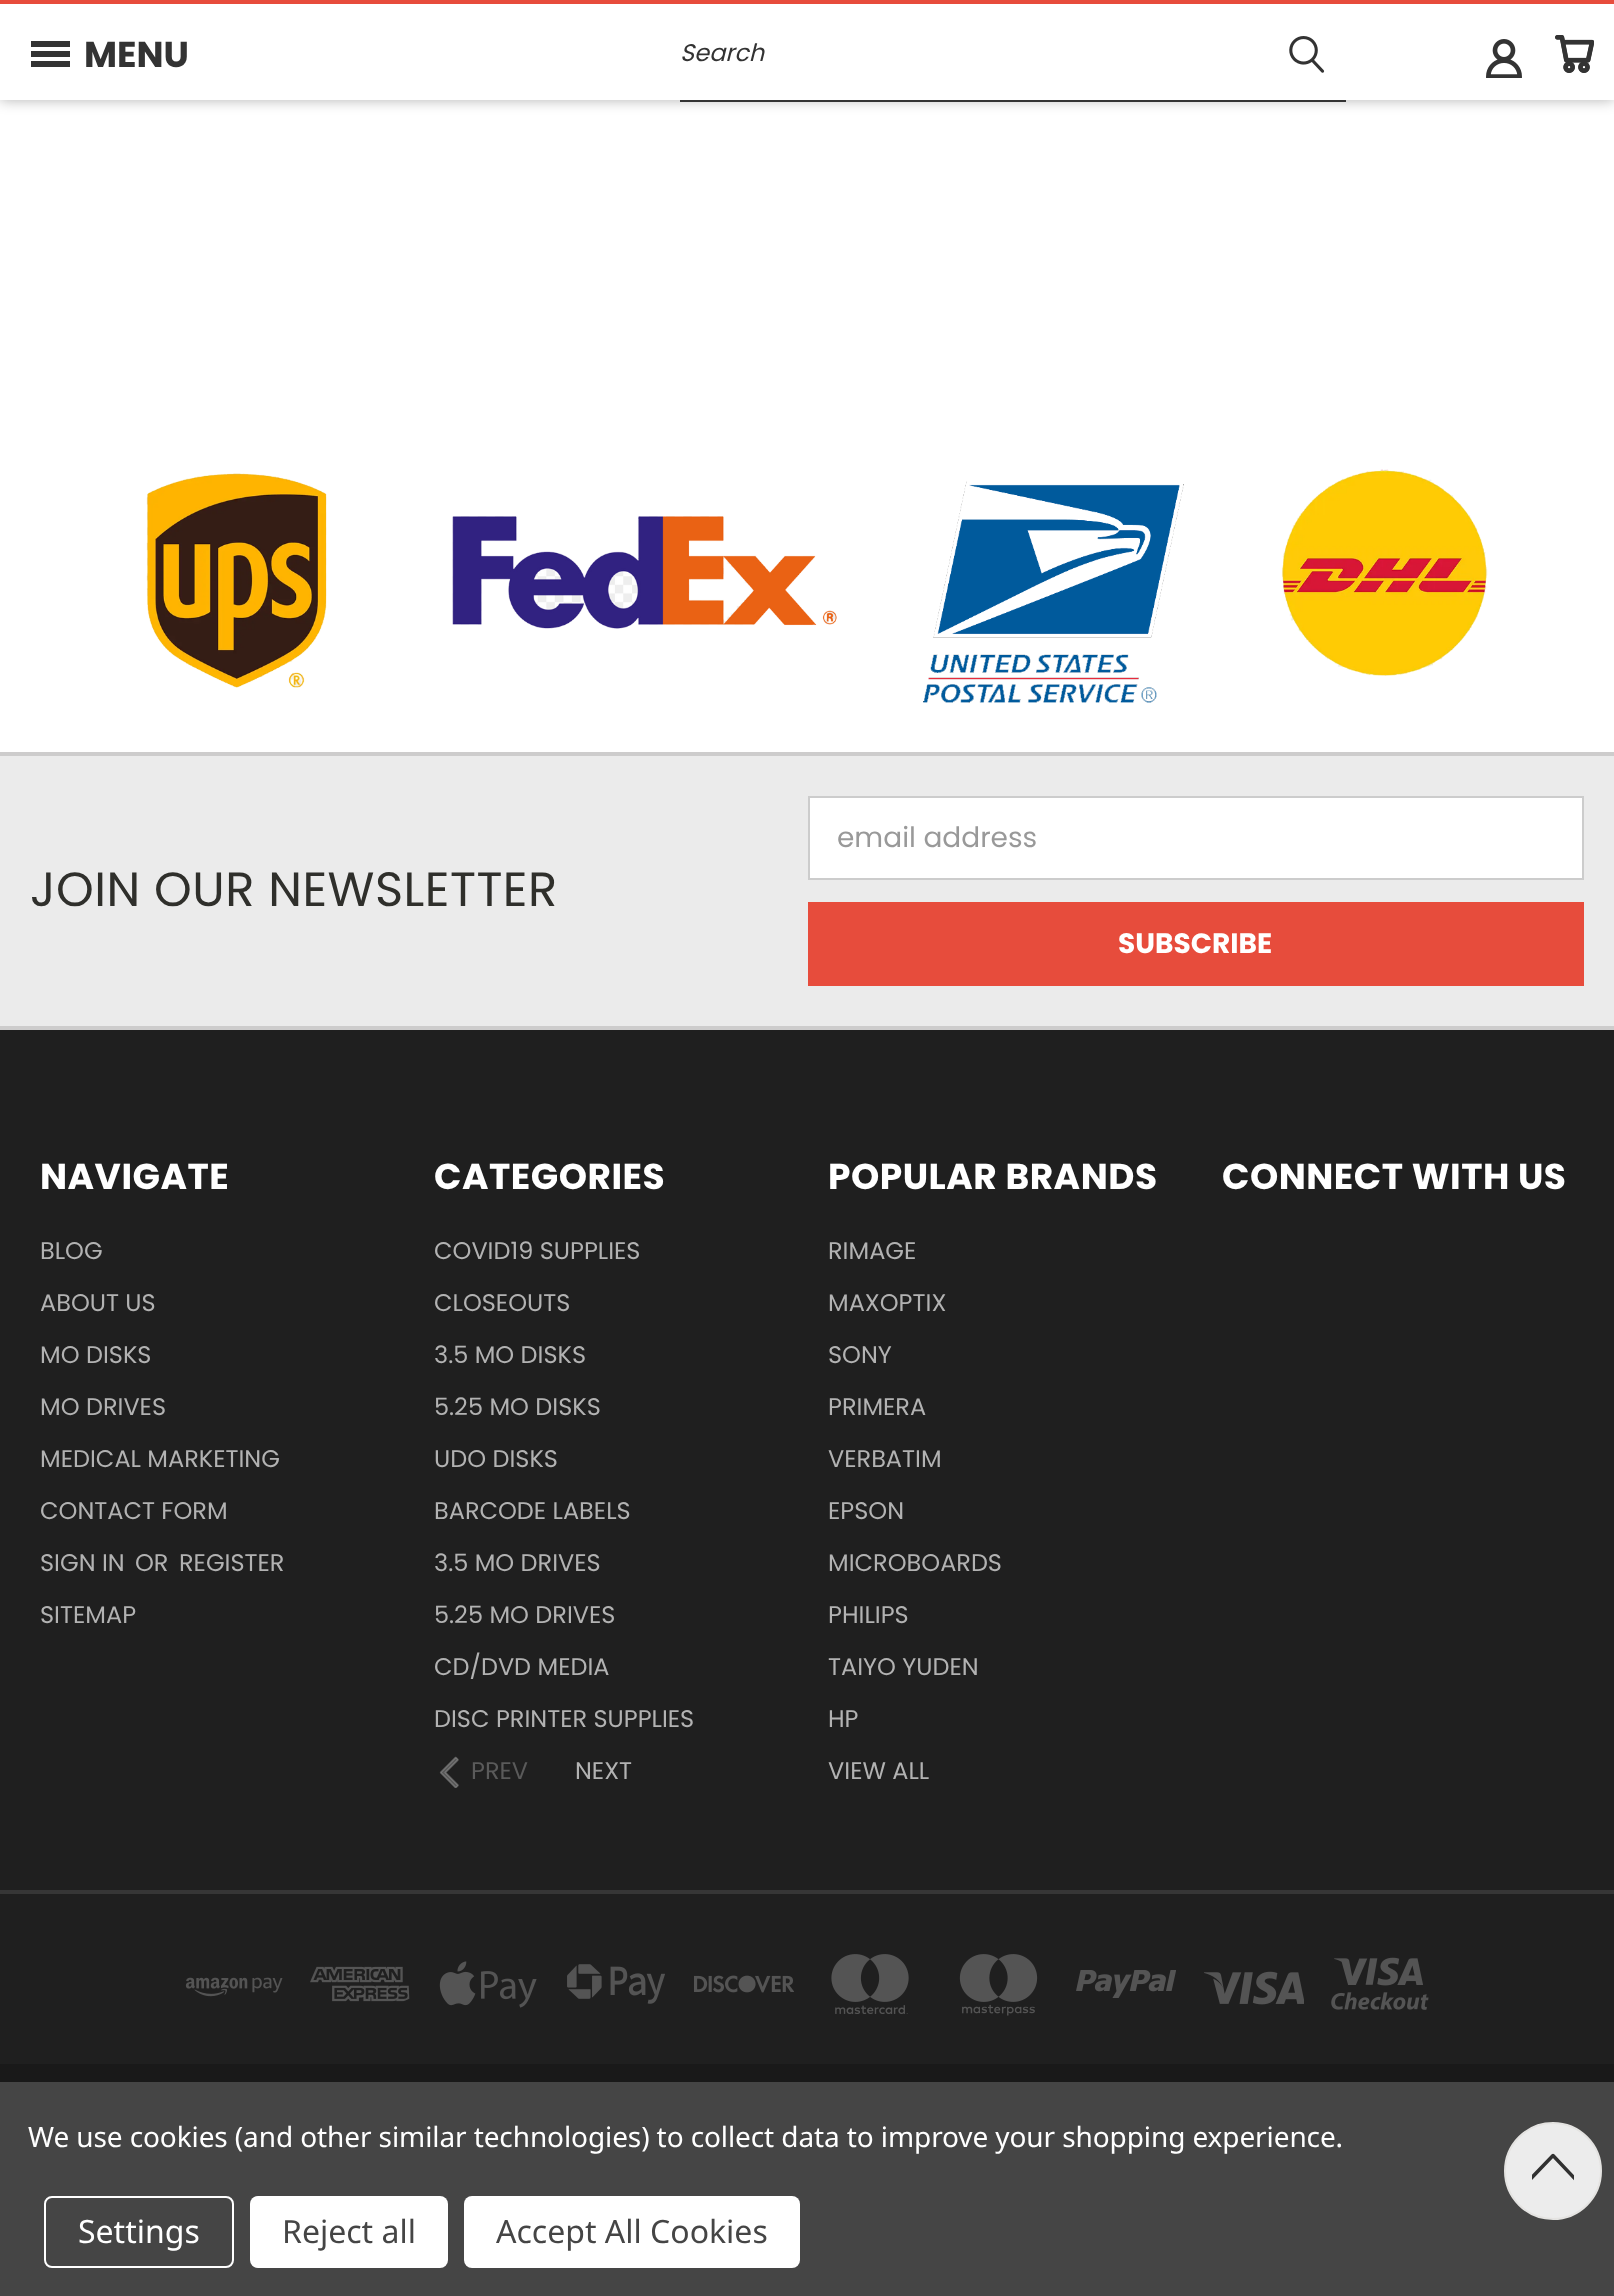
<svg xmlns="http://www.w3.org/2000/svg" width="1614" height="2296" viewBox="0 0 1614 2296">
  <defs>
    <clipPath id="clip1"><path d="M1574 2153V2195H1532V2153Z"/></clipPath>
  </defs>
  <rect width="100%" height="100%" fill="rgb(255,255,255)"/>
  <rect x="0" y="0" width="1614" height="100" fill="rgba(0,0,0,0.3)" filter="blur(7px)"/>
  <rect x="0" y="4" width="1614" height="96" fill="rgb(255,255,255)"/>
  <rect x="0" y="0" width="1614" height="4" fill="rgb(231,76,60)"/>
  <image x="31" y="41" width="39" height="26" href="pic1.png"/>
  <text x="84" y="67" font-family="Poppins" font-size="36" font-weight="bold" fill="rgb(51,51,51)">MENU</text>
  <rect x="680" y="100" width="666" height="2" fill="rgb(51,51,51)"/>
  <text x="680" y="61" font-family="Poppins" font-size="24" font-style="italic" fill="rgb(51,51,51)">Search</text>
  <image x="1289" y="36" width="36" height="37" href="pic2.png"/>
  <image x="1486" y="39" width="36" height="39" href="pic3.png"/>
  <image x="1555" y="35" width="39" height="38" href="pic4.png"/>
  <image x="146" y="469" width="1342" height="234" href="pic5.png"/>
  <rect x="0" y="756" width="1614" height="270" fill="rgb(235,235,235)"/>
  <rect x="0" y="752" width="1614" height="4" fill="rgb(205,204,204)"/>
  <text x="30" y="906" font-family="Poppins" font-size="48" letter-spacing="0.5" fill="rgb(47,47,43)">JOIN OUR NEWSLETTER</text>
  <rect x="809" y="797" width="774" height="82" fill="rgb(255,255,255)" stroke="rgb(204,204,204)" stroke-width="2"/>
  <text x="837" y="847" font-family="Poppins" font-size="28" fill="rgb(153,153,153)">email address</text>
  <rect x="808" y="902" width="776" height="84" fill="rgb(231,76,60)"/>
  <text x="1118" y="953" font-family="Poppins" font-size="28" font-weight="bold" fill="rgb(255,255,255)">SUBSCRIBE</text>
  <rect x="0" y="1030" width="1614" height="1034" fill="rgb(31,31,31)"/>
  <rect x="0" y="1026" width="1614" height="4" fill="rgb(205,204,204)"/>
  <text x="40" y="1189" font-family="Poppins" font-size="36" font-weight="bold" letter-spacing="0.5" fill="rgb(255,255,255)">NAVIGATE</text>
  <g font-family="Poppins" font-size="24" fill="rgb(178,178,178)">
    <text x="40" y="1259">BLOG</text>
    <text x="40" y="1311">ABOUT US</text>
    <text x="40" y="1363">MO DISKS</text>
    <text x="40" y="1415">MO DRIVES</text>
    <text x="40" y="1467">MEDICAL MARKETING</text>
    <text x="40" y="1519">CONTACT FORM</text>
    <text x="40" y="1571">SIGN IN</text>
    <text x="135" y="1571">OR</text>
    <text x="179" y="1571">REGISTER</text>
    <text x="40" y="1623">SITEMAP</text>
  </g>
  <text x="434" y="1189" font-family="Poppins" font-size="36" font-weight="bold" letter-spacing="0.5" fill="rgb(255,255,255)">CATEGORIES</text>
  <g font-family="Poppins" font-size="24" fill="rgb(178,178,178)">
    <text x="434" y="1259">COVID19 SUPPLIES</text>
    <text x="434" y="1311">CLOSEOUTS</text>
    <text x="434" y="1363">3.5 MO DISKS</text>
    <text x="434" y="1415">5.25 MO DISKS</text>
    <text x="434" y="1467">UDO DISKS</text>
    <text x="434" y="1519">BARCODE LABELS</text>
    <text x="434" y="1571">3.5 MO DRIVES</text>
    <text x="434" y="1623">5.25 MO DRIVES</text>
    <text x="434" y="1675">CD/DVD MEDIA</text>
    <text x="434" y="1727">DISC PRINTER SUPPLIES</text>
  </g>
  <image x="439" y="1756" width="20" height="32" href="pic6.png"/>
  <text x="471" y="1779" font-family="Poppins" font-size="24" fill="rgb(90,90,90)">PREV</text>
  <text x="575" y="1779" font-family="Poppins" font-size="24" fill="rgb(178,178,178)">NEXT</text>
  <text x="828" y="1189" font-family="Poppins" font-size="36" font-weight="bold" letter-spacing="0.5" fill="rgb(255,255,255)">POPULAR BRANDS</text>
  <g font-family="Poppins" font-size="24" fill="rgb(178,178,178)">
    <text x="828" y="1259">RIMAGE</text>
    <text x="828" y="1311">MAXOPTIX</text>
    <text x="828" y="1363">SONY</text>
    <text x="828" y="1415">PRIMERA</text>
    <text x="828" y="1467">VERBATIM</text>
    <text x="828" y="1519">EPSON</text>
    <text x="828" y="1571">MICROBOARDS</text>
    <text x="828" y="1623">PHILIPS</text>
    <text x="828" y="1675">TAIYO YUDEN</text>
    <text x="828" y="1727">HP</text>
    <text x="828" y="1779">VIEW ALL</text>
  </g>
  <text x="1222" y="1189" font-family="Poppins" font-size="36" font-weight="bold" letter-spacing="0.5" fill="rgb(255,255,255)">CONNECT WITH US</text>
  <rect x="0" y="1890" width="1614" height="4" fill="rgb(54,54,54)"/>
  <image x="185" y="1977" width="98" height="20" href="pic7.png"/>
  <image x="310" y="1966" width="100" height="36" href="pic8.png"/>
  <image x="439" y="1961" width="98" height="47" href="pic9.png"/>
  <image x="567" y="1964" width="98" height="40" href="pic10.png"/>
  <image x="694" y="1975" width="100" height="18" href="pic11.png"/>
  <image x="831" y="1954" width="78" height="60" href="pic12.png"/>
  <image x="959" y="1954" width="79" height="62" href="pic13.png"/>
  <image x="1076" y="1970" width="100" height="28" href="pic14.png"/>
  <image x="1204" y="1971" width="100" height="34" href="pic15.png"/>
  <image x="1331" y="1957" width="98" height="53" href="pic16.png"/>
  <rect x="0" y="2064" width="1614" height="18" fill="rgb(25,25,25)"/>
  <rect x="0" y="2082" width="1614" height="214" fill="rgb(69,69,69)"/>
  <circle cx="1553" cy="2171" r="48" fill="rgb(236,236,236)" stroke="rgb(228,227,225)" stroke-width="2"/>
  <g clip-path="url(#clip1)">
    <path d="M1588 2192.5L1553 2155.5L1518 2192" fill="none" stroke="rgb(49,49,49)" stroke-width="3.5" stroke-linecap="round" stroke-linejoin="round"/>
  </g>
  <text x="28" y="2147" font-family="Noto Sans" font-size="28" letter-spacing="-0.1" fill="rgb(255,255,255)">We use cookies (and other similar technologies) to collect data to improve your shopping experience.</text>
  <rect x="45" y="2197" width="188" height="70" rx="7" fill="none" stroke="rgb(255,255,255)" stroke-width="2"/>
  <text x="78" y="2243" font-family="Noto Sans" font-size="32" fill="rgb(255,255,255)">Settings</text>
  <rect x="250" y="2196" width="198" height="72" rx="8" fill="rgb(255,255,255)"/>
  <text x="282" y="2243" font-family="Noto Sans" font-size="32" fill="rgb(69,69,69)">Reject all</text>
  <rect x="464" y="2196" width="336" height="72" rx="8" fill="rgb(255,255,255)"/>
  <text x="496" y="2243" font-family="Noto Sans" font-size="32" fill="rgb(69,69,69)">Accept All Cookies</text>
</svg>
